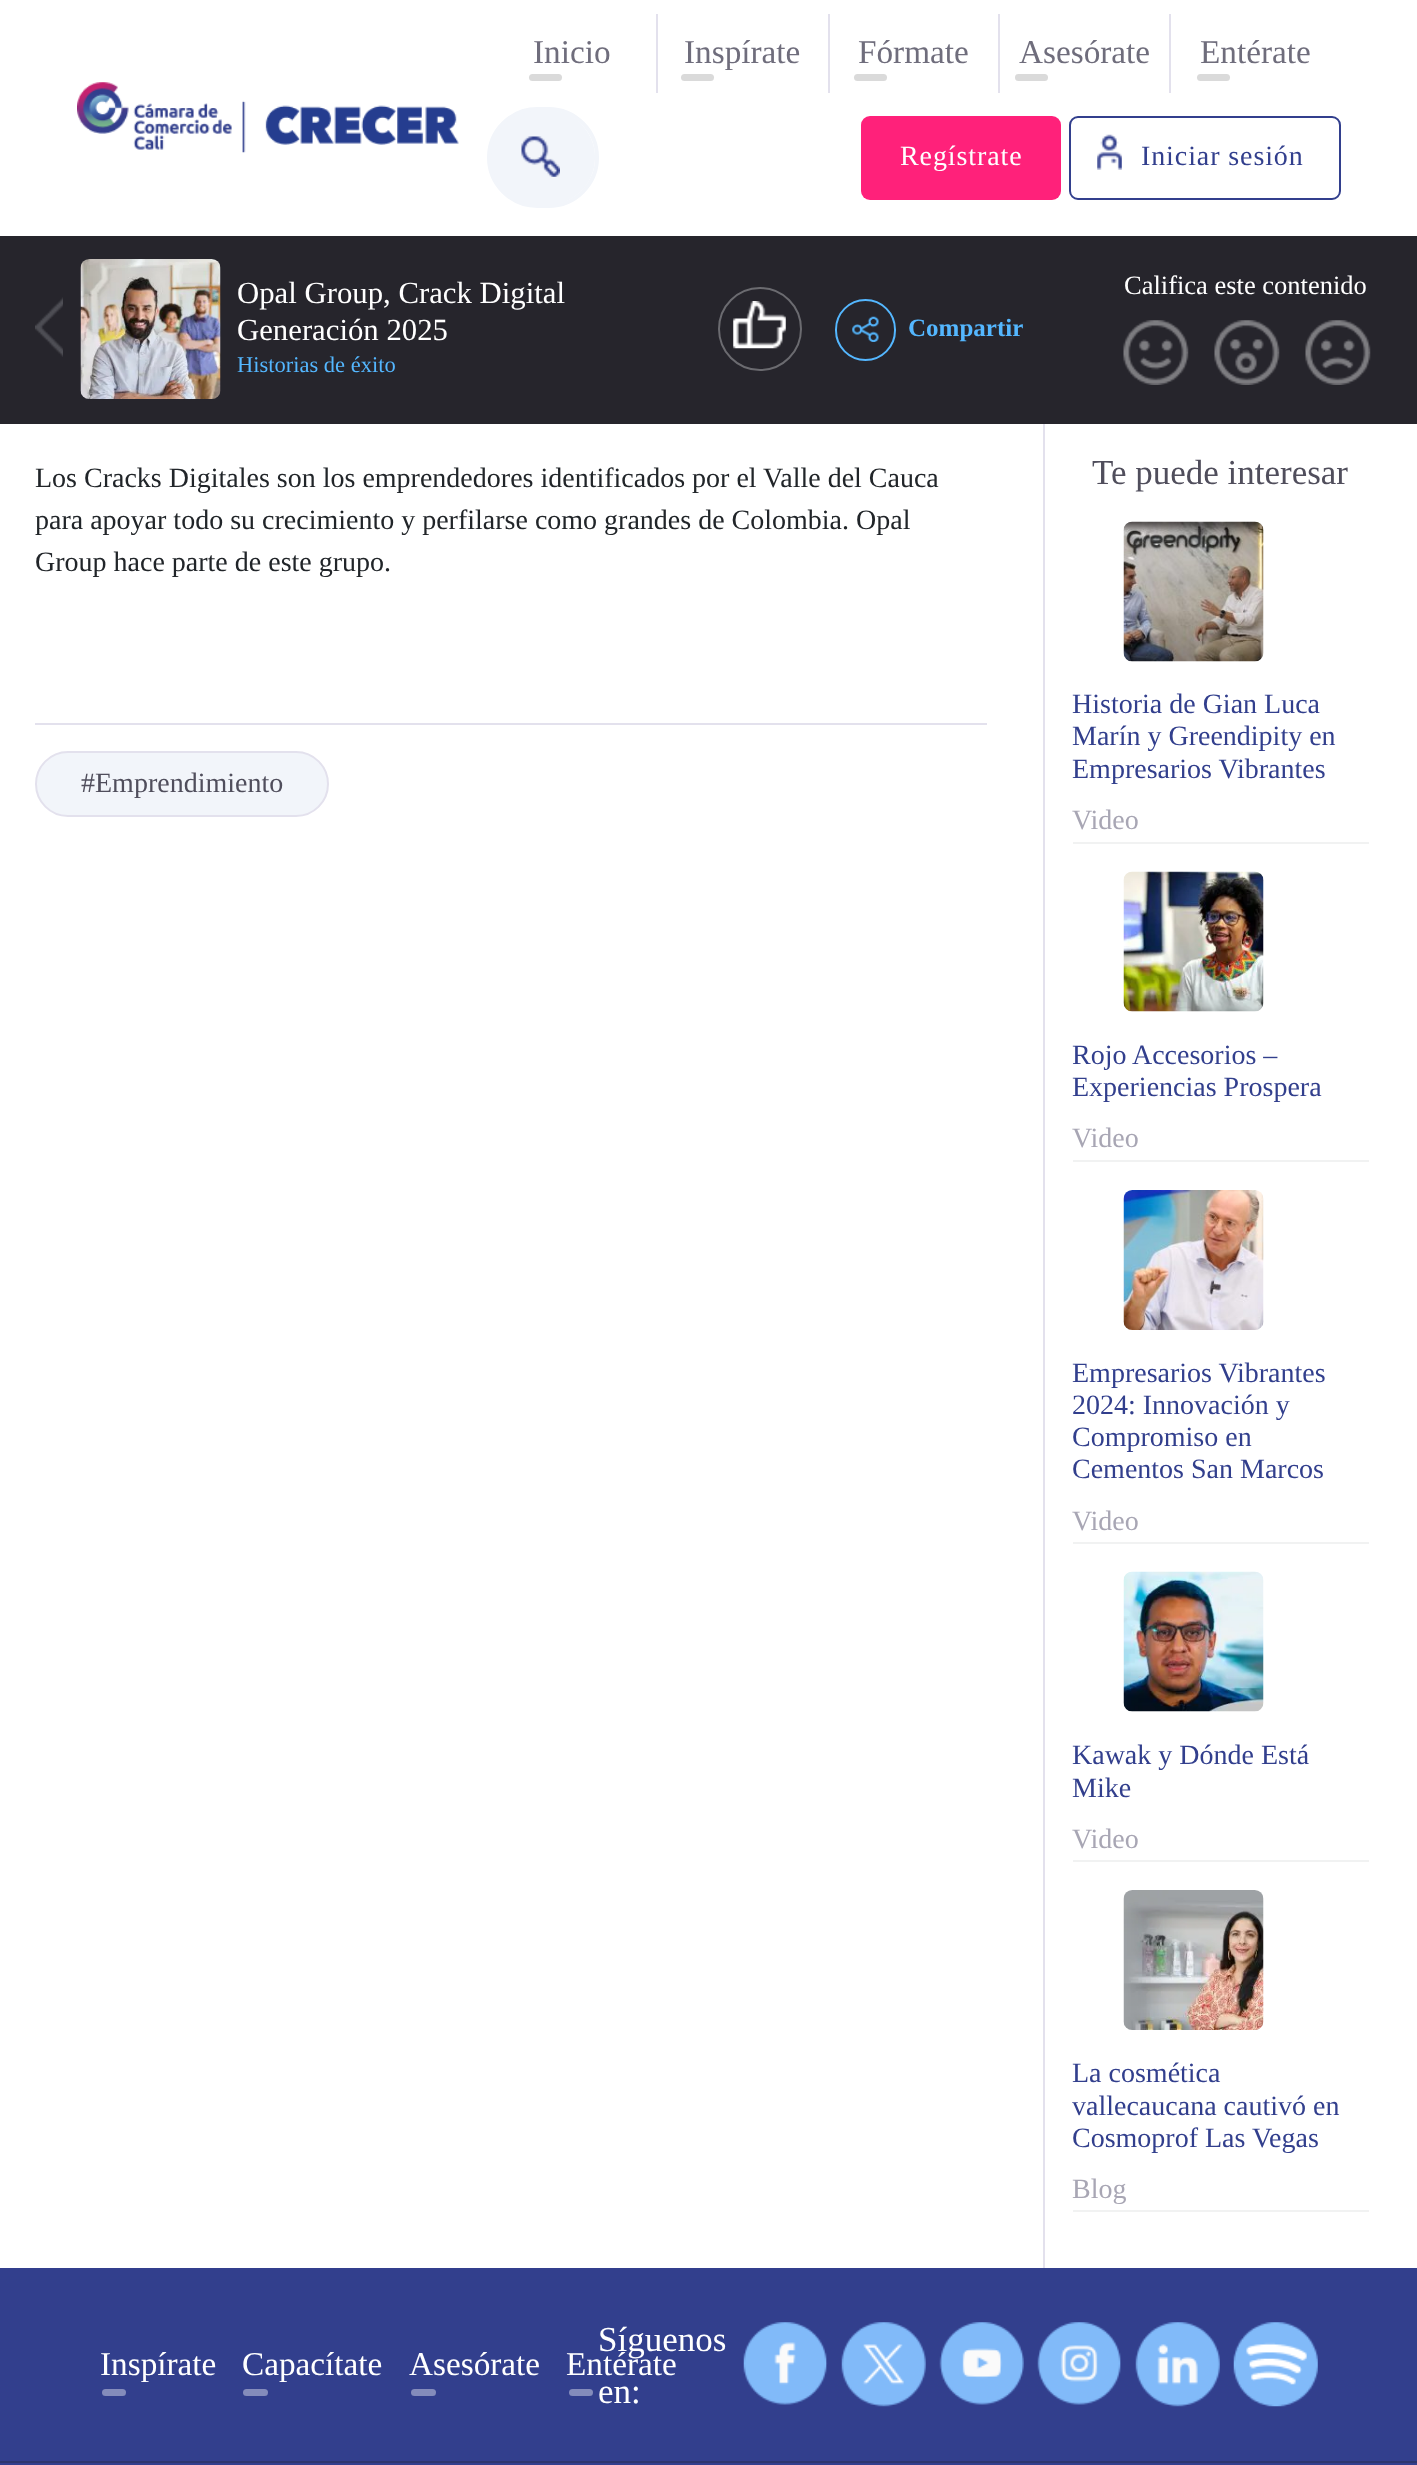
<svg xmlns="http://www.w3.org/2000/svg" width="1417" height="2465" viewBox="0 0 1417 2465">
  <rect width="100%" height="100%" fill="rgb(255,255,255)"/>
  <image x="77" y="82" width="382" height="71" href="pic1.png"/>
  <rect x="656" y="14" width="2" height="79" fill="rgb(227,225,237)"/>
  <text x="533" y="63" font-family="Liberation Serif" font-size="33.25" fill="rgb(111,109,124)">Inicio</text>
  <rect x="529" y="74" width="33" height="7" rx="3.5" fill="rgb(218,218,218)"/>
  <rect x="828" y="14" width="2" height="79" fill="rgb(227,225,237)"/>
  <text x="684" y="63" font-family="Liberation Serif" font-size="33.25" fill="rgb(111,109,124)">Inspírate</text>
  <rect x="681" y="74" width="33" height="7" rx="3.5" fill="rgb(218,218,218)"/>
  <rect x="998" y="14" width="2" height="79" fill="rgb(227,225,237)"/>
  <text x="858" y="63" font-family="Liberation Serif" font-size="33.25" fill="rgb(111,109,124)">Fórmate</text>
  <rect x="854" y="74" width="33" height="7" rx="3.5" fill="rgb(218,218,218)"/>
  <rect x="1169" y="14" width="2" height="79" fill="rgb(227,225,237)"/>
  <text x="1019" y="63" font-family="Liberation Serif" font-size="33.25" fill="rgb(111,109,124)">Asesórate</text>
  <rect x="1015" y="74" width="33" height="7" rx="3.5" fill="rgb(218,218,218)"/>
  <text x="1200" y="63" font-family="Liberation Serif" font-size="33.25" fill="rgb(111,109,124)">Entérate</text>
  <rect x="1197" y="74" width="33" height="7" rx="3.5" fill="rgb(218,218,218)"/>
  <rect x="490" y="110" width="105" height="95" rx="47.5" fill="rgb(242,245,250)"/>
  <image x="521" y="136" width="39" height="41" href="pic2.png"/>
  <rect x="489" y="109" width="108" height="97" rx="48.5" fill="none" stroke="rgb(242,245,250)" stroke-width="4"/>
  <rect x="861" y="116" width="200" height="84" rx="9" fill="rgb(255,33,122)"/>
  <text x="900" y="165" font-family="Liberation Serif" font-size="28" letter-spacing="0.9" fill="rgb(255,255,255)">Regístrate</text>
  <image x="1097" y="134" width="25" height="36" href="pic3.png"/>
  <rect x="1070" y="117" width="270" height="82" rx="8" fill="none" stroke="rgb(50,63,141)" stroke-width="2"/>
  <text x="1141" y="165" font-family="Liberation Serif" font-size="28" letter-spacing="0.9" fill="rgb(50,63,141)">Iniciar sesión</text>
  <rect x="0" y="236" width="1417" height="188" fill="rgb(38,37,44)"/>
  <image x="35" y="297" width="28" height="60" href="pic4.png"/>
  <image x="80" y="259" width="141" height="140" href="pic5.png"/>
  <g font-family="Liberation Serif" font-size="30.75" fill="rgb(255,255,255)">
    <text>
      <tspan x="237" y="303">Opal Group, Crack Digital</tspan>
      <tspan x="237" y="340">Generación 2025</tspan>
    </text>
  </g>
  <text x="237" y="372" font-family="Liberation Serif" font-size="22.5" fill="rgb(84,183,255)">Historias de éxito</text>
  <text x="1124" y="294" font-family="Liberation Serif" font-size="26.5" fill="rgb(255,255,255)">Califica este contenido</text>
  <image x="1123" y="320" width="66" height="65" href="pic6.png"/>
  <image x="1214" y="320" width="66" height="65" href="pic7.png"/>
  <image x="1305" y="320" width="66" height="65" href="pic8.png"/>
  <image x="733" y="301" width="53" height="48" href="pic9.png"/>
  <circle cx="760" cy="329" r="41" fill="none" stroke="rgb(107,107,112)" stroke-width="2"/>
  <rect x="836" y="300" width="59" height="60" rx="29.5" fill="none" stroke="rgb(84,183,255)" stroke-width="2"/>
  <image x="852" y="316" width="27" height="26" href="pic10.png"/>
  <text x="908" y="336" font-family="Liberation Serif" font-size="25" font-weight="bold" fill="rgb(84,183,255)">Compartir</text>
  <g font-family="Liberation Serif" font-size="28" fill="rgb(33,37,41)">
    <text>
      <tspan x="35" y="487">Los Cracks Digitales son los emprendedores identificados por el Valle del Cauca</tspan>
      <tspan x="35" y="529">para apoyar todo su crecimiento y perfilarse como grandes de Colombia. Opal</tspan>
      <tspan x="35" y="571">Group hace parte de este grupo.</tspan>
    </text>
  </g>
  <rect x="35" y="723" width="952" height="2" fill="rgb(227,225,237)"/>
  <rect x="36" y="752" width="292" height="64" rx="32" fill="rgb(242,245,250)" stroke="rgb(227,225,237)" stroke-width="2"/>
  <text x="81" y="792" font-family="Liberation Serif" font-size="28" fill="rgb(80,78,92)">#Emprendimiento</text>
  <rect x="1043" y="424" width="2" height="1844" fill="rgb(227,225,237)"/>
  <text x="1092" y="484" font-family="Liberation Serif" font-size="35" fill="rgb(80,78,92)">Te puede interesar</text>
  <rect x="1073" y="842" width="296" height="2" fill="rgb(241,242,242)"/>
  <image x="1123" y="521" width="141" height="141" href="pic11.png"/>
  <g font-family="Liberation Serif" font-size="28" fill="rgb(50,63,141)">
    <text>
      <tspan x="1072" y="713">Historia de Gian Luca</tspan>
      <tspan x="1072" y="745">Marín y Greendipity en</tspan>
      <tspan x="1072" y="778">Empresarios Vibrantes</tspan>
    </text>
  </g>
  <text x="1072" y="829" font-family="Liberation Serif" font-size="28" fill="rgb(168,166,180)">Video</text>
  <rect x="1073" y="1160" width="296" height="2" fill="rgb(241,242,242)"/>
  <image x="1123" y="871" width="141" height="141" href="pic12.png"/>
  <g font-family="Liberation Serif" font-size="28" fill="rgb(50,63,141)">
    <text>
      <tspan x="1072" y="1064">Rojo Accesorios –</tspan>
      <tspan x="1072" y="1096">Experiencias Prospera</tspan>
    </text>
  </g>
  <text x="1072" y="1147" font-family="Liberation Serif" font-size="28" fill="rgb(168,166,180)">Video</text>
  <rect x="1073" y="1542" width="296" height="2" fill="rgb(241,242,242)"/>
  <image x="1123" y="1190" width="141" height="140" href="pic13.png"/>
  <g font-family="Liberation Serif" font-size="28" fill="rgb(50,63,141)">
    <text>
      <tspan x="1072" y="1382">Empresarios Vibrantes</tspan>
      <tspan x="1072" y="1414">2024: Innovación y</tspan>
      <tspan x="1072" y="1446">Compromiso en</tspan>
      <tspan x="1072" y="1478">Cementos San Marcos</tspan>
    </text>
  </g>
  <text x="1072" y="1530" font-family="Liberation Serif" font-size="28" fill="rgb(168,166,180)">Video</text>
  <rect x="1073" y="1860" width="296" height="2" fill="rgb(241,242,242)"/>
  <image x="1123" y="1571" width="141" height="141" href="pic14.png"/>
  <g font-family="Liberation Serif" font-size="28" fill="rgb(50,63,141)">
    <text>
      <tspan x="1072" y="1764">Kawak y Dónde Está</tspan>
      <tspan x="1072" y="1797">Mike</tspan>
    </text>
  </g>
  <text x="1072" y="1848" font-family="Liberation Serif" font-size="28" fill="rgb(168,166,180)">Video</text>
  <rect x="1073" y="2210" width="296" height="2" fill="rgb(241,242,242)"/>
  <image x="1123" y="1890" width="141" height="140" href="pic15.png"/>
  <g font-family="Liberation Serif" font-size="28" fill="rgb(50,63,141)">
    <text>
      <tspan x="1072" y="2082">La cosmética</tspan>
      <tspan x="1072" y="2115">vallecaucana cautivó en</tspan>
      <tspan x="1072" y="2147">Cosmoprof Las Vegas</tspan>
    </text>
  </g>
  <text x="1072" y="2198" font-family="Liberation Serif" font-size="28" fill="rgb(168,166,180)">Blog</text>
  <rect x="0" y="2268" width="1417" height="197" fill="rgb(50,63,141)"/>
  <g font-family="Liberation Serif" font-size="35" fill="rgb(255,255,255)">
    <text>
      <tspan x="598" y="2351">Síguenos</tspan>
      <tspan x="598" y="2403">en:</tspan>
    </text>
  </g>
  <image x="743" y="2322" width="85" height="83" href="pic16.png"/>
  <image x="841" y="2322" width="85" height="85" href="pic17.png"/>
  <image x="939" y="2322" width="85" height="83" href="pic18.png"/>
  <image x="1037" y="2322" width="84" height="83" href="pic19.png"/>
  <image x="1135" y="2322" width="85" height="85" href="pic20.png"/>
  <image x="1233" y="2322" width="85" height="85" href="pic21.png"/>
  <text x="100" y="2375" font-family="Liberation Serif" font-size="33.25" fill="rgb(255,255,255)">Inspírate</text>
  <rect x="102" y="2389" width="24" height="7" rx="3.5" fill="rgb(132,140,187)"/>
  <text x="242" y="2375" font-family="Liberation Serif" font-size="33.25" fill="rgb(255,255,255)">Capacítate</text>
  <rect x="243" y="2389" width="25" height="7" rx="3.5" fill="rgb(132,140,187)"/>
  <text x="409" y="2375" font-family="Liberation Serif" font-size="33.25" fill="rgb(255,255,255)">Asesórate</text>
  <rect x="411" y="2389" width="25" height="7" rx="3.5" fill="rgb(132,140,187)"/>
  <text x="566" y="2375" font-family="Liberation Serif" font-size="33.25" fill="rgb(255,255,255)">Entérate</text>
  <rect x="569" y="2389" width="24" height="7" rx="3.5" fill="rgb(132,140,187)"/>
  <rect x="0" y="2461" width="1417" height="2" fill="rgb(45,55,111)"/>
</svg>
